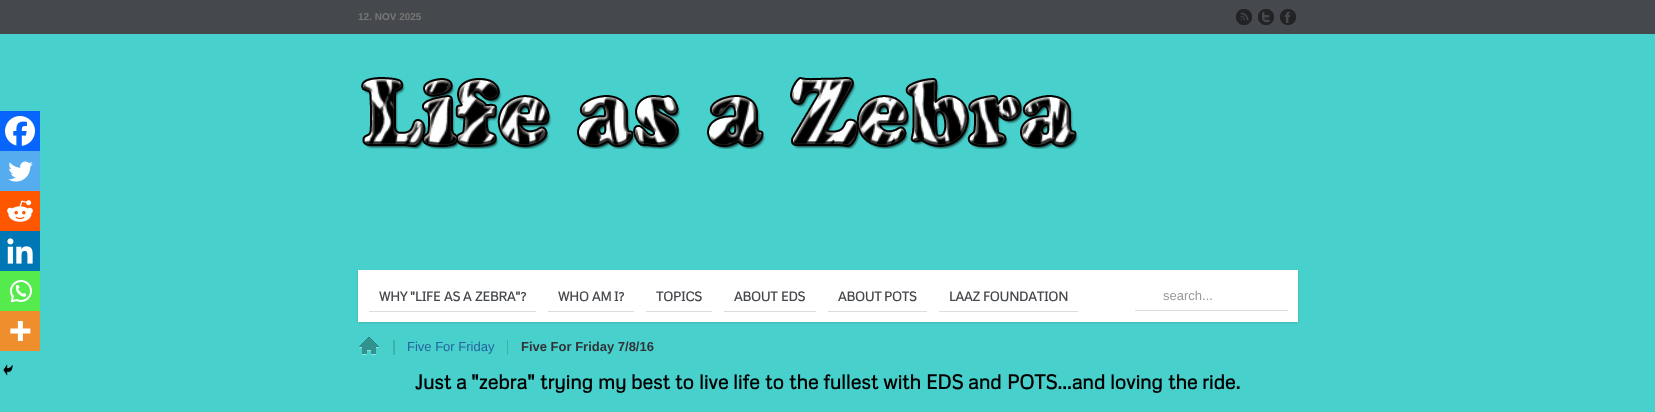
<svg xmlns="http://www.w3.org/2000/svg" width="1655" height="412" viewBox="0 0 1655 412">
  <rect width="100%" height="100%" fill="rgb(69,72,76)"/>
  <text x="358" y="20" font-family="Liberation Sans" font-size="10" font-weight="bold" fill="rgb(119,119,119)">12. NOV 2025</text>
  <image x="1236" y="9" width="16" height="16" href="pic1.png"/>
  <image x="1258" y="9" width="16" height="16" href="pic2.png"/>
  <image x="1280" y="9" width="16" height="16" href="pic3.png"/>
  <rect x="0" y="34" width="1655" height="378" fill="rgb(72,209,204)"/>
  <rect x="0" y="111" width="40" height="40" fill="rgb(7,101,254)"/>
  <image x="5" y="116" width="30" height="30" href="pic4.png"/>
  <rect x="0" y="151" width="40" height="40" fill="rgb(85,172,238)"/>
  <image x="8" y="161" width="25" height="21" href="pic5.png"/>
  <rect x="0" y="191" width="40" height="40" fill="rgb(255,87,0)"/>
  <image x="7" y="200" width="26" height="22" href="pic6.png"/>
  <rect x="0" y="231" width="40" height="40" fill="rgb(0,119,181)"/>
  <image x="7" y="238" width="26" height="26" href="pic7.png"/>
  <rect x="0" y="271" width="40" height="40" fill="rgb(85,235,76)"/>
  <image x="10" y="280" width="22" height="23" href="pic8.png"/>
  <rect x="0" y="311" width="40" height="40" fill="rgb(238,142,45)"/>
  <image x="10" y="321" width="21" height="20" href="pic9.png"/>
  <image x="3" y="364" width="10" height="12" href="pic10.png"/>
  <image x="361" y="77" width="718" height="72" href="pic11.png"/>
  <rect x="358" y="271" width="940" height="52" fill="rgba(0,0,0,0.12)" filter="blur(1px)"/>
  <rect x="358" y="270" width="940" height="52" fill="rgb(255,255,255)"/>
  <rect x="369" y="311" width="167" height="1" fill="rgb(221,222,220)"/>
  <g font-family="Metrophobic" font-size="13" font-weight="bold" fill="rgb(69,72,76)">
    <text x="379" y="301">WHY</text>
    <text x="410" y="301">"LIFE</text>
    <text x="444" y="301">AS</text>
    <text x="463" y="301">A</text>
    <text x="475" y="301">ZEBRA"?</text>
  </g>
  <rect x="548" y="311" width="86" height="1" fill="rgb(221,222,220)"/>
  <g font-family="Metrophobic" font-size="13" font-weight="bold" fill="rgb(69,72,76)">
    <text x="558" y="301">WHO</text>
    <text x="592" y="301">AM</text>
    <text x="614" y="301">I?</text>
  </g>
  <rect x="646" y="311" width="66" height="1" fill="rgb(221,222,220)"/>
  <text x="656" y="301" font-family="Metrophobic" font-size="13" font-weight="bold" fill="rgb(69,72,76)">TOPICS</text>
  <rect x="724" y="311" width="92" height="1" fill="rgb(221,222,220)"/>
  <g font-family="Metrophobic" font-size="13" font-weight="bold" fill="rgb(69,72,76)">
    <text x="734" y="301">ABOUT</text>
    <text x="781" y="301">EDS</text>
  </g>
  <rect x="828" y="311" width="99" height="1" fill="rgb(221,222,220)"/>
  <g font-family="Metrophobic" font-size="13" font-weight="bold" fill="rgb(69,72,76)">
    <text x="838" y="301">ABOUT</text>
    <text x="884" y="301">POTS</text>
  </g>
  <rect x="939" y="311" width="139" height="1" fill="rgb(221,222,220)"/>
  <g font-family="Metrophobic" font-size="13" font-weight="bold" fill="rgb(69,72,76)">
    <text x="949" y="301">LAAZ</text>
    <text x="983" y="301">FOUNDATION</text>
  </g>
  <rect x="1135" y="310" width="153" height="1" fill="rgb(221,222,220)"/>
  <text x="1163" y="300" font-family="Liberation Sans" font-size="13" fill="rgb(153,153,153)">search...</text>
  <image x="359" y="337" width="20" height="18" href="pic12.png"/>
  <rect x="393" y="340" width="2" height="15" fill="rgb(61,178,173)"/>
  <text x="407" y="351" font-family="Liberation Sans" font-size="13" fill="rgb(39,99,158)">Five For Friday</text>
  <rect x="507" y="340" width="1" height="15" fill="rgb(61,178,173)"/>
  <text x="521" y="351" font-family="Liberation Sans" font-size="13" font-weight="bold" fill="rgb(50,51,56)">Five For Friday 7/8/16</text>
  <g font-family="Metrophobic" font-size="20" font-weight="bold" fill="rgb(0,0,0)">
    <text x="415" y="389">Just</text>
    <text x="456" y="389">a</text>
    <text x="471" y="389">"zebra"</text>
    <text x="540" y="389">trying</text>
    <text x="598" y="389">my</text>
    <text x="631" y="389">best</text>
    <text x="675" y="389">to</text>
    <text x="699" y="389">live</text>
    <text x="733" y="389">life</text>
    <text x="765" y="389">to</text>
    <text x="789" y="389">the</text>
    <text x="823" y="389">fullest</text>
    <text x="883" y="389">with</text>
    <text x="926" y="389">EDS</text>
    <text x="968" y="389">and</text>
    <text x="1007" y="389">POTS...and</text>
    <text x="1110" y="389">loving</text>
    <text x="1168" y="389">the</text>
    <text x="1202" y="389">ride.</text>
  </g>
</svg>
